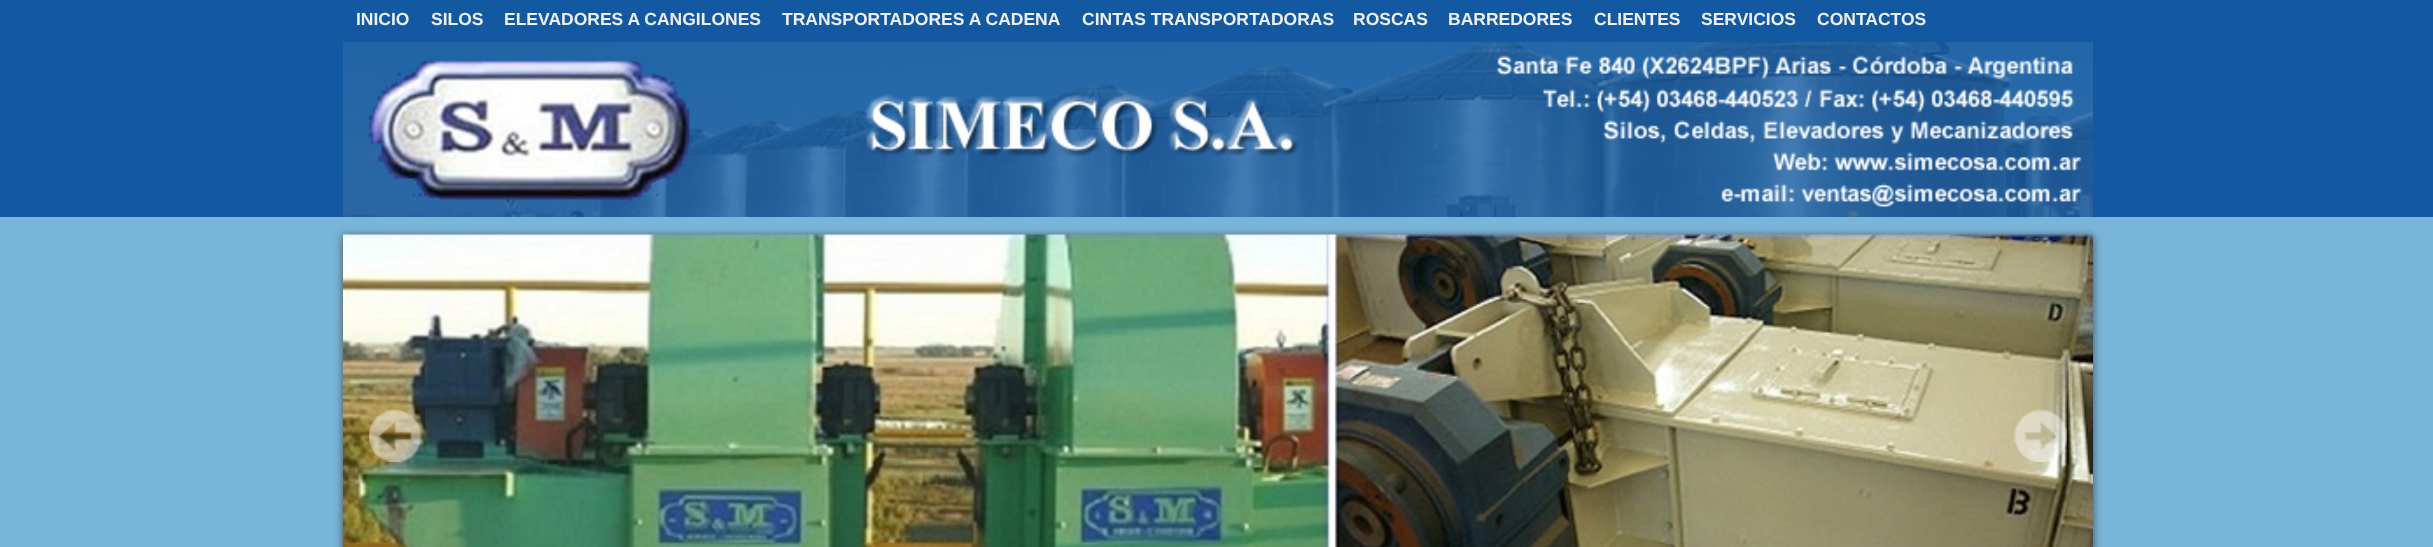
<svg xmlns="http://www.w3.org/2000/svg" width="2433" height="547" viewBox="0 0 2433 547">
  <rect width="100%" height="100%" fill="rgb(121,181,217)"/>
  <rect x="0" y="0" width="2433" height="217" fill="rgb(19,89,161)"/>
  <g font-family="Liberation Sans" font-size="17.5" font-weight="bold" fill="rgb(239,239,239)">
    <text x="356" y="25">INICIO</text>
    <text x="431" y="25">SILOS</text>
    <text x="504" y="25">ELEVADORES A CANGILONES</text>
    <text x="782" y="25">TRANSPORTADORES A CADENA</text>
    <text x="1082" y="25">CINTAS TRANSPORTADORAS</text>
    <text x="1353" y="25">ROSCAS</text>
    <text x="1448" y="25">BARREDORES</text>
    <text x="1594" y="25">CLIENTES</text>
    <text x="1701" y="25">SERVICIOS</text>
    <text x="1817" y="25">CONTACTOS</text>
  </g>
  <image x="343" y="42" width="1750" height="175" href="pic1.png"/>
  <rect x="343" y="236" width="1750" height="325" fill="rgb(74,74,74)" filter="blur(4.5px)"/>
  <image x="343" y="234" width="1750" height="313" href="pic2.png"/>
  <image x="369" y="409" width="53" height="53" href="pic3.png"/>
  <image x="2014" y="409" width="53" height="53" href="pic4.png"/>
</svg>
